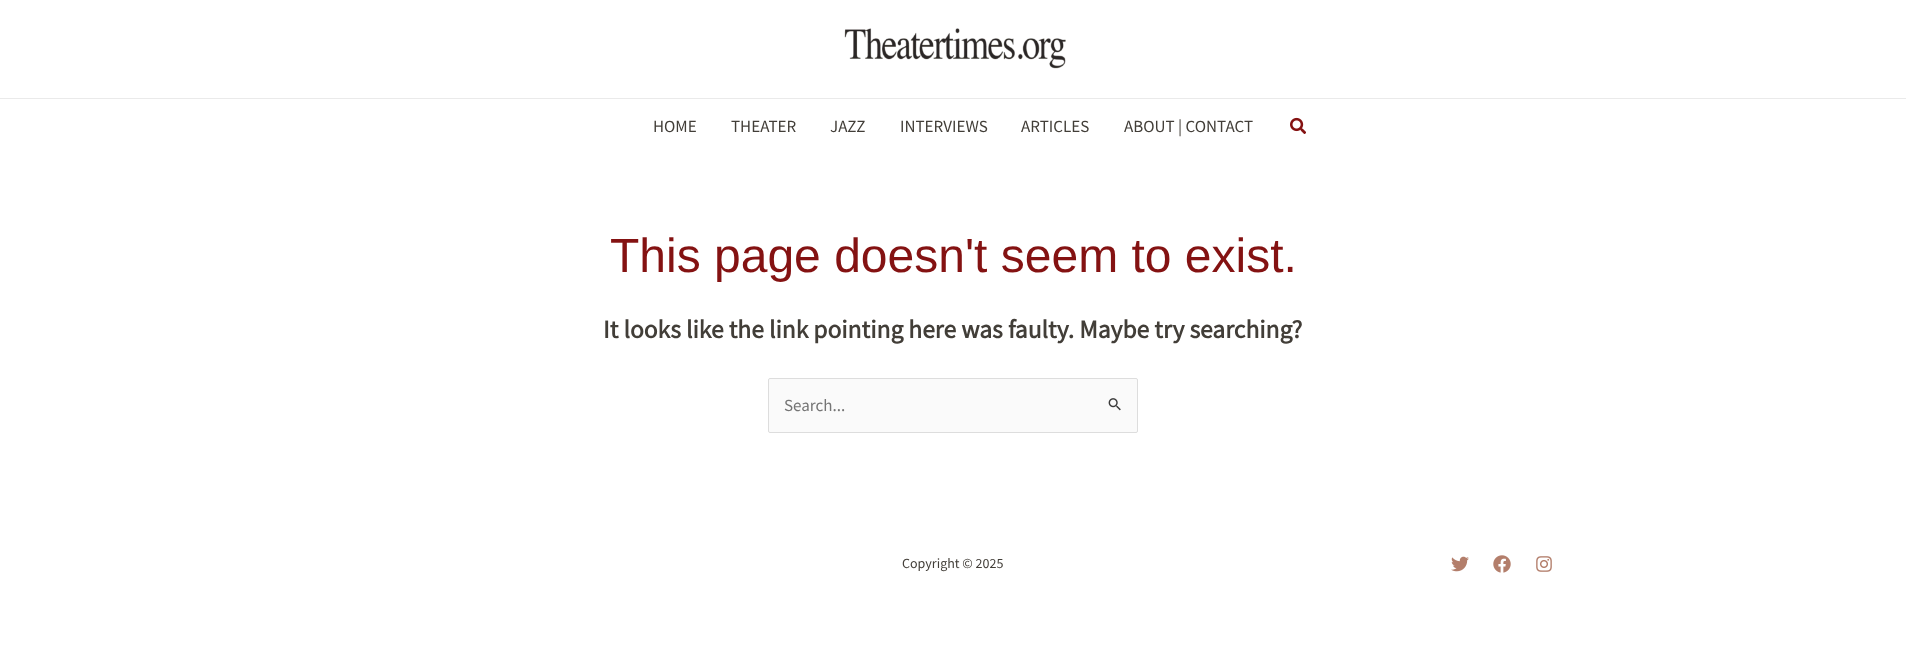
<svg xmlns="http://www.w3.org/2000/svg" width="1906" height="672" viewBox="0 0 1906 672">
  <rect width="100%" height="100%" fill="rgb(255,255,255)"/>
  <rect x="0" y="98" width="1906" height="1" fill="rgb(234,234,234)"/>
  <image x="844" y="28" width="222" height="41" href="pic1.png"/>
  <g font-family="Source Sans Pro" font-size="17" fill="rgb(66,62,56)">
    <text x="653" y="132">HOME</text>
    <text x="731" y="132">THEATER</text>
    <text x="830" y="132">JAZZ</text>
    <text x="900" y="132">INTERVIEWS</text>
    <text x="1021" y="132">ARTICLES</text>
    <text x="1124" y="132">ABOUT | CONTACT</text>
  </g>
  <image x="1290" y="117" width="16" height="17" href="pic2.png"/>
  <text x="610" y="272" font-family="Liberation Sans" font-size="48" fill="rgb(132,18,18)">This page doesn't seem to exist.</text>
  <text x="603" y="338" font-family="Source Sans Pro" font-size="25.5" font-weight="bold" fill="rgb(66,62,56)">It looks like the link pointing here was faulty. Maybe try searching?</text>
  <rect x="768.5" y="378.5" width="369" height="54" rx="1.5" fill="rgb(250,250,250)" stroke="rgb(221,221,221)"/>
  <text x="784" y="411" font-family="Source Sans Pro" font-size="17" fill="rgb(117,117,117)">Search...</text>
  <image x="1108" y="398" width="13" height="13" href="pic3.png"/>
  <text x="902" y="568" font-family="Source Sans Pro" font-size="14" fill="rgb(66,62,56)">Copyright © 2025</text>
  <image x="1451" y="556" width="18" height="16" href="pic4.png"/>
  <image x="1493" y="555" width="18" height="18" href="pic5.png"/>
  <image x="1536" y="556" width="16" height="16" href="pic6.png"/>
</svg>
